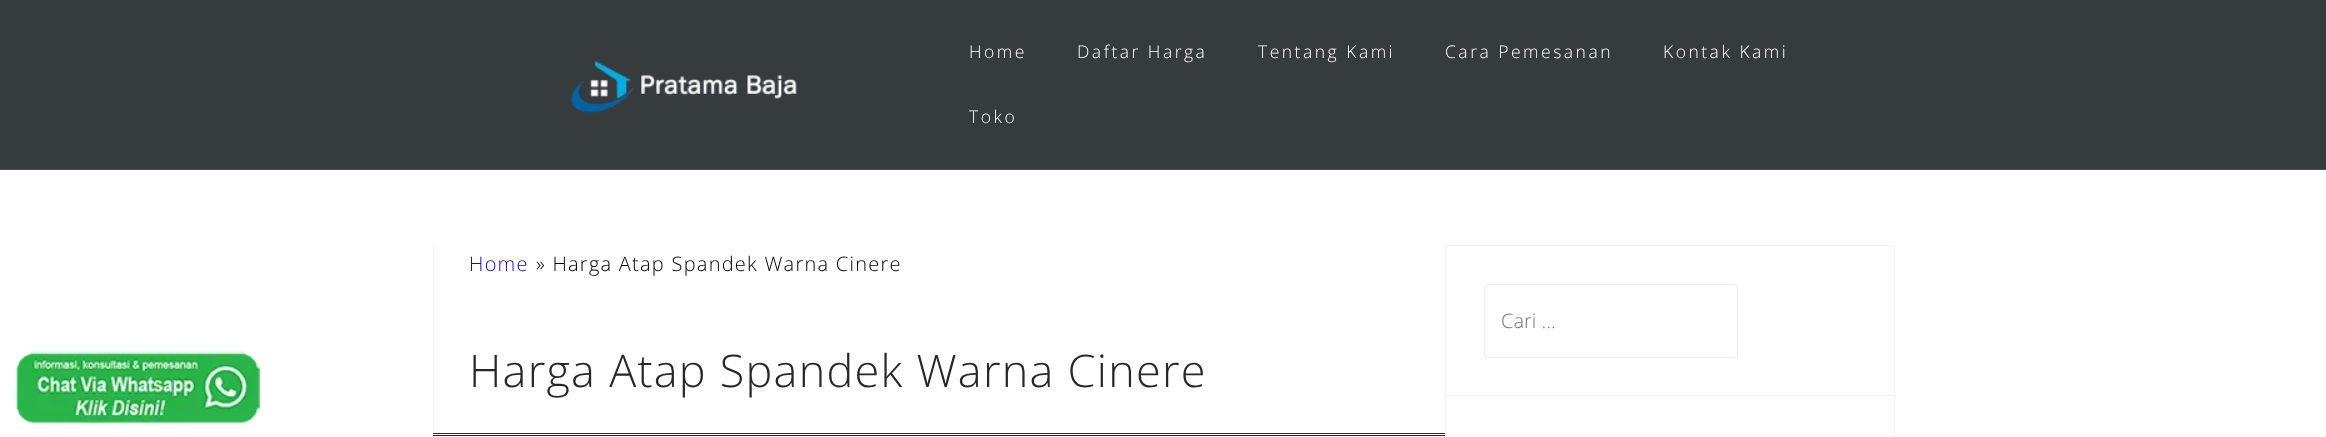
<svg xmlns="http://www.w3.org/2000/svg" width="2326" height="437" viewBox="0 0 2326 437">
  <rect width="100%" height="100%" fill="rgb(255,255,255)"/>
  <rect x="0" y="0" width="2326" height="169" fill="rgb(54,59,62)"/>
  <rect x="0" y="169" width="2326" height="1" fill="rgb(74,79,81)"/>
  <image x="571" y="61" width="226" height="52" href="pic1.png"/>
  <g font-family="Open Sans" font-size="17.5" font-weight="300" letter-spacing="2.5" fill="rgb(255,255,255)">
    <text x="969" y="58">Home</text>
    <text x="1077" y="58">Daftar Harga</text>
    <text x="1258" y="58">Tentang Kami</text>
    <text x="1445" y="58">Cara Pemesanan</text>
    <text x="1663" y="58">Kontak Kami</text>
    <text x="969" y="123">Toko</text>
  </g>
  <rect x="433" y="245" width="1" height="192" fill="rgb(242,242,243)"/>
  <text x="469" y="271" font-family="Open Sans" font-size="20" font-weight="300" letter-spacing="1.25" fill="rgb(26,13,171)">Home</text>
  <text x="536" y="271" font-family="Open Sans" font-size="20" font-weight="300" letter-spacing="1.25" fill="rgb(0,0,0)">» Harga Atap Spandek Warna Cinere</text>
  <rect x="433" y="433" width="1013" height="1" fill="rgb(39,39,39)"/>
  <rect x="433" y="435" width="1013" height="1" fill="rgb(39,39,39)"/>
  <text x="469" y="387" font-family="Open Sans" font-size="45" font-weight="300" letter-spacing="1.25" fill="rgb(39,39,39)">Harga Atap Spandek Warna Cinere</text>
  <rect x="1445.5" y="245.5" width="449" height="150" fill="none" stroke="rgb(242,242,243)"/>
  <rect x="1484.5" y="284.5" width="253" height="73" rx="3.5" fill="none" stroke="rgb(235,235,235)"/>
  <text x="1501" y="328" font-family="Open Sans" font-size="20" font-weight="300" fill="rgb(117,117,117)">Cari …</text>
  <rect x="1445.5" y="395.5" width="449" height="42" fill="none" stroke="rgb(242,242,243)"/>
  <image x="13" y="351" width="248" height="73" href="pic2.png"/>
</svg>
